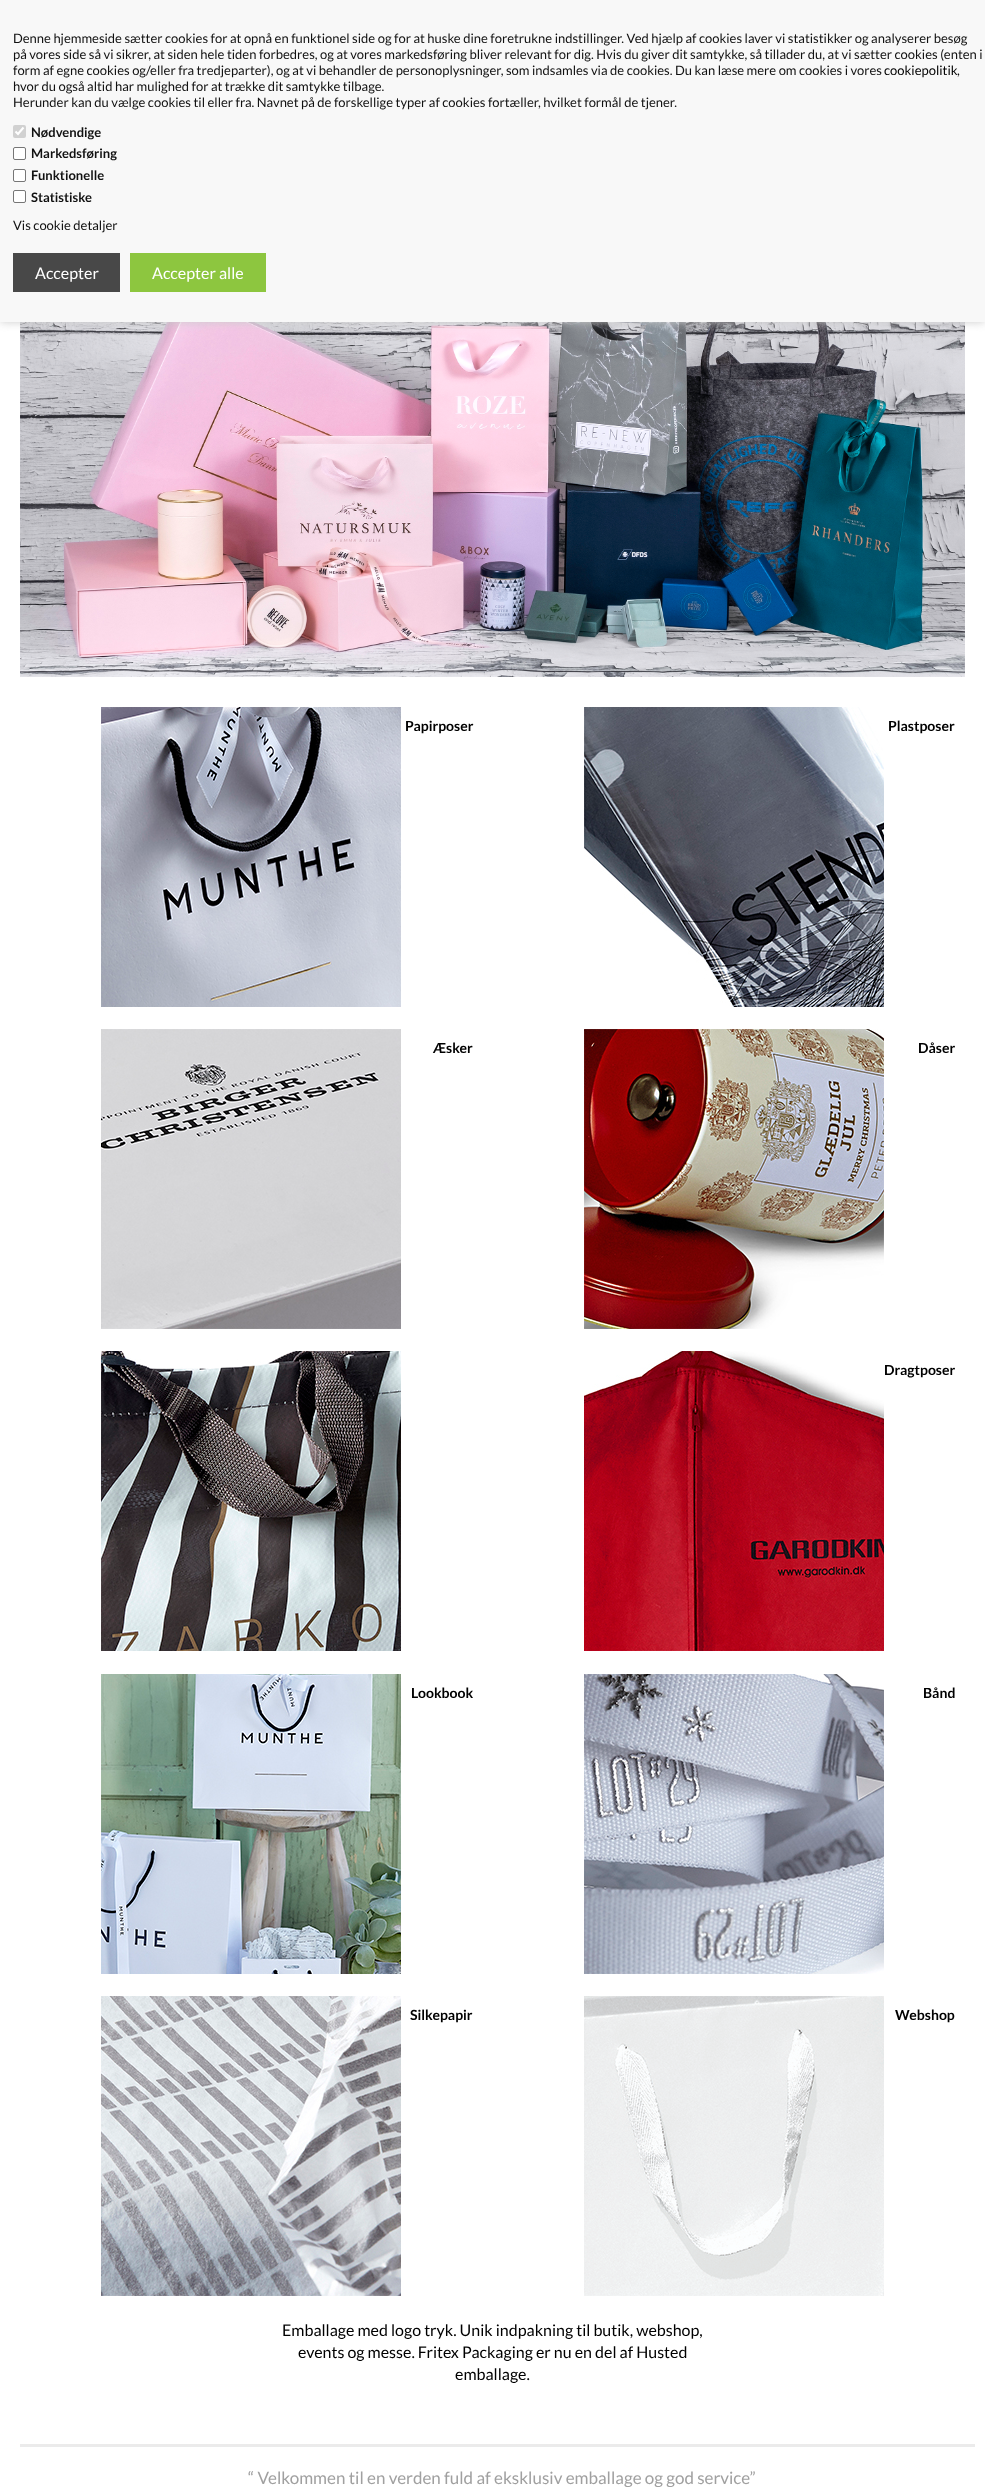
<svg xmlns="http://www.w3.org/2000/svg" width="985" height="2488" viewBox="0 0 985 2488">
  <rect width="100%" height="100%" fill="rgb(255,255,255)"/>
  <image x="20" y="322" width="945" height="355" href="pic1.png"/>
  <rect x="0" y="0" width="985" height="322" fill="rgb(204,204,204)" filter="blur(5px)"/>
  <rect x="0" y="0" width="985" height="322" fill="rgb(248,248,248)"/>
  <g font-family="Lato" font-size="13" fill="rgb(17,17,17)">
    <text>
      <tspan x="13" y="43">Denne hjemmeside sætter cookies for at opnå en funktionel side og for at huske dine foretrukne indstillinger. Ved hjælp af cookies laver vi statistikker og analyserer besøg</tspan>
      <tspan x="13" y="59">på vores side så vi sikrer, at siden hele tiden forbedres, og at vores markedsføring bliver relevant for dig. Hvis du giver dit samtykke, så tillader du, at vi sætter cookies (enten i</tspan>
      <tspan x="13" y="75">form af egne cookies og/eller fra tredjeparter), og at vi behandler de personoplysninger, som indsamles via de cookies. Du kan læse mere om cookies i vores</tspan>
    </text>
  </g>
  <text x="884" y="75" font-family="Lato" font-size="13" fill="rgb(0,0,0)">cookiepolitik</text>
  <g font-family="Lato" font-size="13" fill="rgb(17,17,17)">
    <text x="957" y="75">,</text>
    <text>
      <tspan x="13" y="91">hvor du også altid har mulighed for at trække dit samtykke tilbage.</tspan>
      <tspan x="13" y="107">Herunder kan du vælge cookies til eller fra. Navnet på de forskellige typer af cookies fortæller, hvilket formål de tjener.</tspan>
    </text>
  </g>
  <rect x="13" y="125" width="13" height="13" rx="2" fill="rgb(209,209,209)"/>
  <path d="M15.5 131.5L18 134L23.5 127.5" fill="none" stroke="rgb(255,255,255)" stroke-width="2.1"/>
  <text x="31" y="137" font-family="Lato" font-size="13" font-weight="bold" fill="rgb(17,17,17)">Nødvendige</text>
  <rect x="13.5" y="147.5" width="12" height="12" rx="1.5" fill="rgb(255,255,255)" stroke="rgb(118,118,118)"/>
  <text x="31" y="158" font-family="Lato" font-size="13" font-weight="bold" fill="rgb(17,17,17)">Markedsføring</text>
  <rect x="13.5" y="169.5" width="12" height="12" rx="1.5" fill="rgb(255,255,255)" stroke="rgb(118,118,118)"/>
  <text x="31" y="180" font-family="Lato" font-size="13" font-weight="bold" fill="rgb(17,17,17)">Funktionelle</text>
  <rect x="13.5" y="190.5" width="12" height="12" rx="1.5" fill="rgb(255,255,255)" stroke="rgb(118,118,118)"/>
  <text x="31" y="202" font-family="Lato" font-size="13" font-weight="bold" fill="rgb(17,17,17)">Statistiske</text>
  <text x="13" y="230" font-family="Lato" font-size="13" fill="rgb(17,17,17)">Vis cookie detaljer</text>
  <rect x="13" y="253" width="107" height="39" fill="rgb(72,72,72)"/>
  <text x="35" y="279" font-family="Lato" font-size="16" fill="rgb(255,255,255)">Accepter</text>
  <rect x="130" y="253" width="136" height="39" fill="rgb(141,198,63)"/>
  <text x="152" y="279" font-family="Lato" font-size="16" fill="rgb(255,255,255)">Accepter alle</text>
  <image x="101" y="707" width="300" height="300" href="pic2.png"/>
  <text x="405" y="731" font-family="Lato" font-size="14" font-weight="bold" fill="rgb(0,0,0)">Papirposer</text>
  <image x="584" y="707" width="300" height="300" href="pic3.png"/>
  <text x="888" y="731" font-family="Lato" font-size="14" font-weight="bold" fill="rgb(0,0,0)">Plastposer</text>
  <image x="101" y="1029" width="300" height="300" href="pic4.png"/>
  <text x="433" y="1053" font-family="Lato" font-size="14" font-weight="bold" fill="rgb(0,0,0)">Æsker</text>
  <image x="584" y="1029" width="300" height="300" href="pic5.png"/>
  <text x="918" y="1053" font-family="Lato" font-size="14" font-weight="bold" fill="rgb(0,0,0)">Dåser</text>
  <image x="101" y="1351" width="300" height="300" href="pic6.png"/>
  <image x="584" y="1351" width="300" height="300" href="pic7.png"/>
  <text x="884" y="1375" font-family="Lato" font-size="14" font-weight="bold" fill="rgb(0,0,0)">Dragtposer</text>
  <image x="101" y="1674" width="300" height="300" href="pic8.png"/>
  <text x="411" y="1698" font-family="Lato" font-size="14" font-weight="bold" fill="rgb(0,0,0)">Lookbook</text>
  <image x="584" y="1674" width="300" height="300" href="pic9.png"/>
  <text x="923" y="1698" font-family="Lato" font-size="14" font-weight="bold" fill="rgb(0,0,0)">Bånd</text>
  <image x="101" y="1996" width="300" height="300" href="pic10.png"/>
  <text x="410" y="2020" font-family="Lato" font-size="14" font-weight="bold" fill="rgb(0,0,0)">Silkepapir</text>
  <image x="584" y="1996" width="300" height="300" href="pic11.png"/>
  <text x="895" y="2020" font-family="Lato" font-size="14" font-weight="bold" fill="rgb(0,0,0)">Webshop</text>
  <g font-family="Lato" font-size="16" fill="rgb(0,0,0)">
    <text x="282" y="2336">Emballage med logo tryk. Unik indpakning til butik, webshop,</text>
    <text x="298" y="2358">events og messe. Fritex Packaging er nu en del af Husted</text>
    <text x="455" y="2380">emballage.</text>
  </g>
  <rect x="20" y="2444" width="955" height="3" fill="rgb(235,235,235)"/>
  <text x="248" y="2484" font-family="Lato" font-size="17" fill="rgb(160,160,160)">“ Velkommen til en verden fuld af eksklusiv emballage og god service”</text>
</svg>
